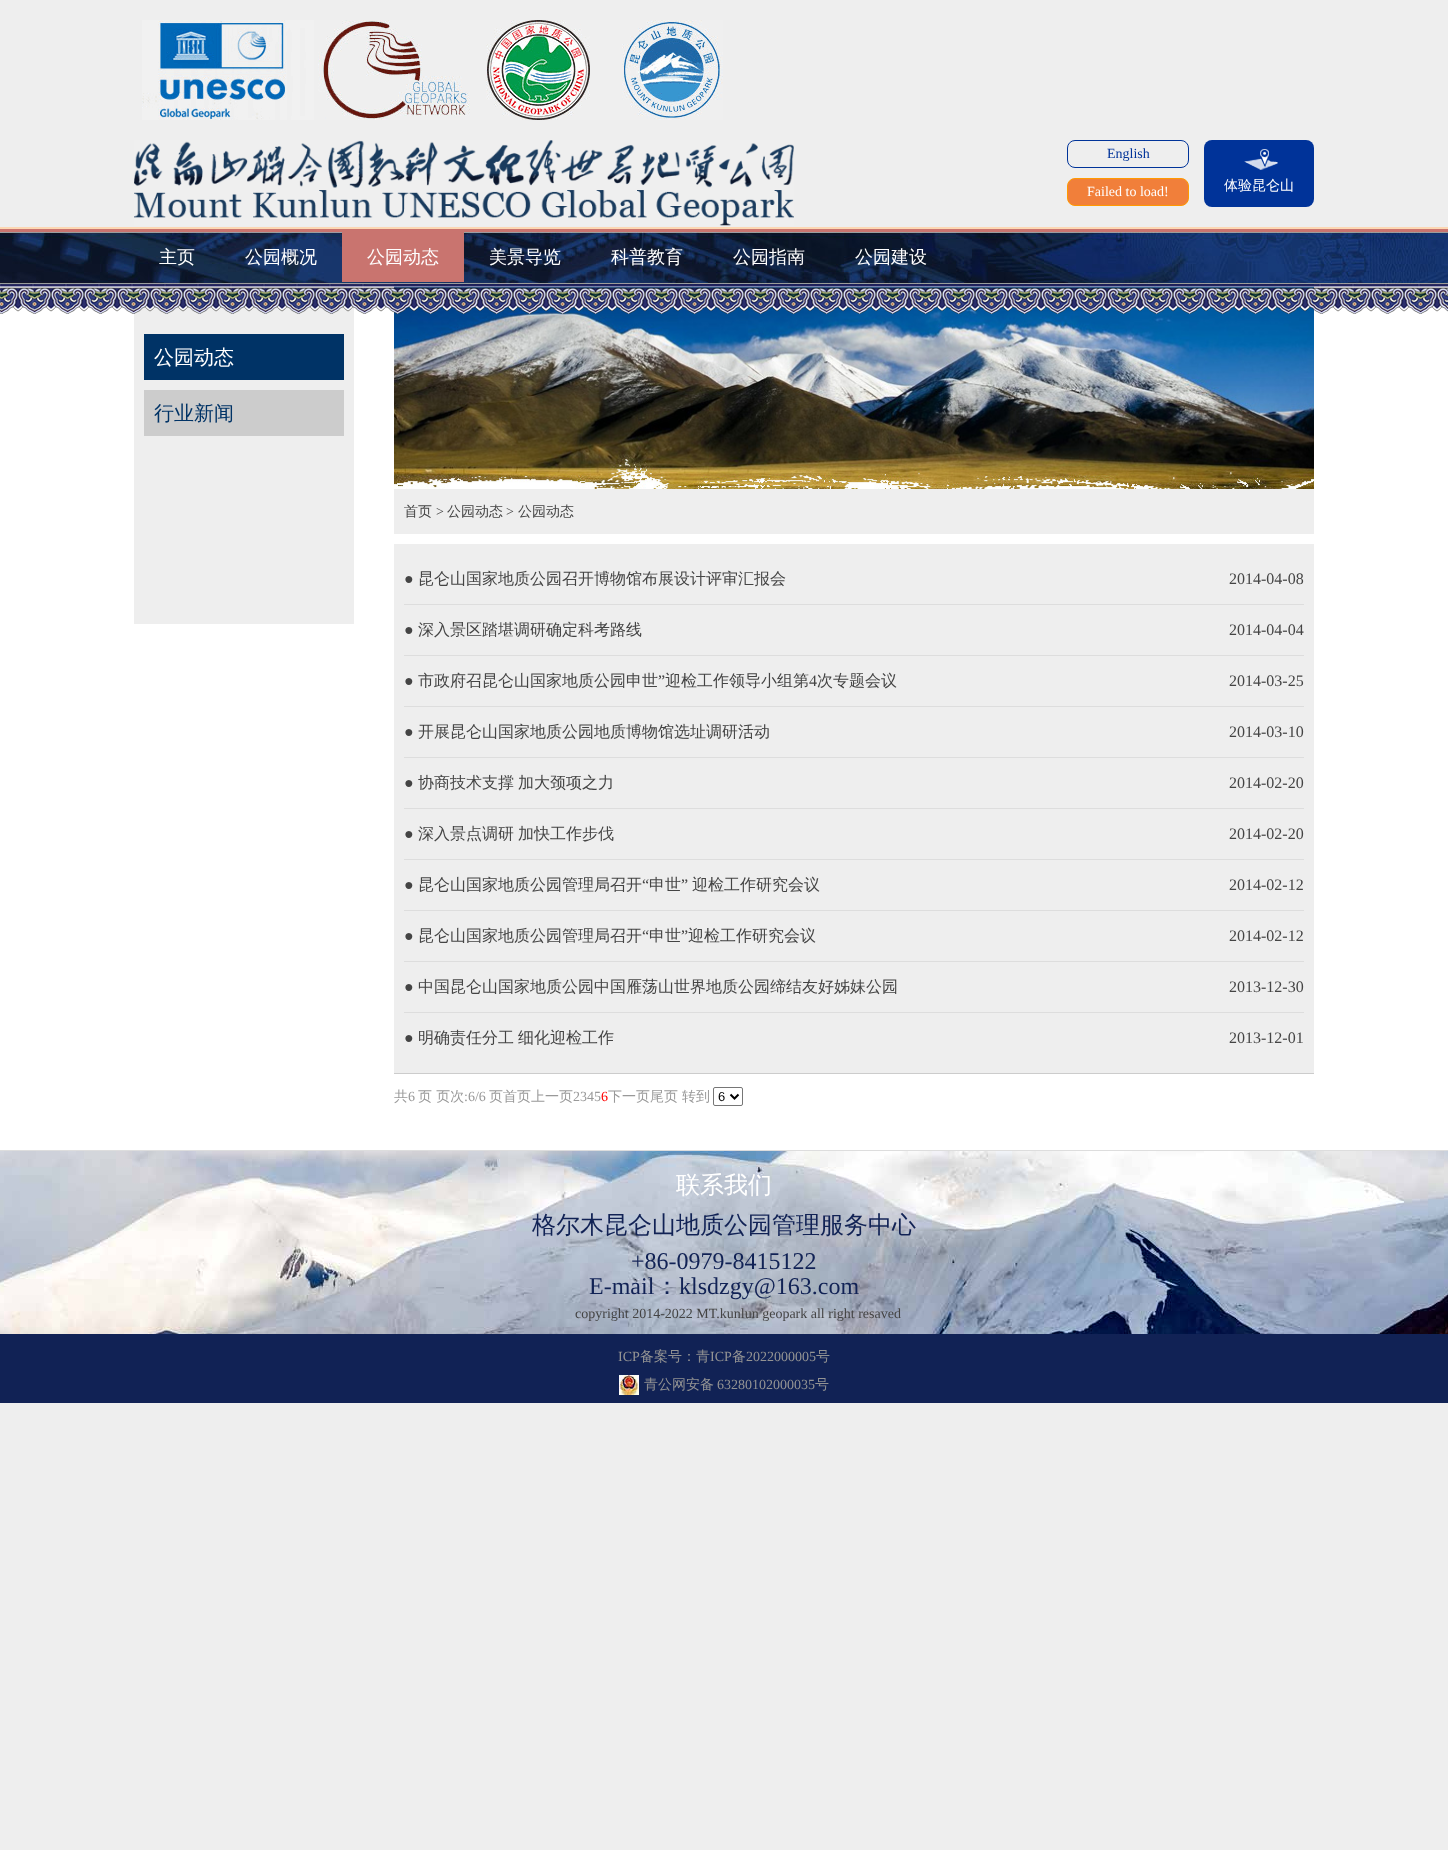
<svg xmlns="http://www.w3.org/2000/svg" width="1448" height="1850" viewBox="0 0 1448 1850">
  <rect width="100%" height="100%" fill="rgb(238,238,238)"/>
  <image x="142" y="20" width="581" height="100" href="pic1.png"/>
  <image x="134" y="140" width="660" height="86" href="pic2.png"/>
  <rect x="1067.5" y="140.5" width="121" height="27" rx="7.5" fill="none" stroke="rgb(0,51,153)"/>
  <text x="1107" y="158" font-family="Liberation Serif" font-size="14" fill="rgb(0,51,153)">English</text>
  <rect x="1067.5" y="178.5" width="121" height="27" rx="7.5" fill="rgb(241,127,58)" stroke="rgb(255,153,0)"/>
  <text x="1087" y="196" font-family="Liberation Serif" font-size="14" fill="rgb(255,255,255)">Failed to load!</text>
  <rect x="1204" y="140" width="110" height="67" rx="8" fill="rgb(0,51,153)"/>
  <image x="1244" y="149" width="34" height="21" href="pic3.png"/>
  <text x="1224" y="190" font-family="WenQuanYi Zen Hei" font-size="14" font-weight="500" fill="rgb(255,255,255)">体验昆仑山</text>
  <rect x="0" y="227" width="1448" height="2" fill="rgb(252,215,179)"/>
  <rect x="0" y="229" width="1448" height="3" fill="rgb(201,116,111)"/>
  <image x="0" y="232" width="1448" height="52" href="pic4.png"/>
  <g font-family="WenQuanYi Zen Hei" font-size="18" font-weight="500" fill="rgb(255,255,255)">
    <text x="159" y="263">主页</text>
    <text x="245" y="263">公园概况</text>
  </g>
  <rect x="342" y="232" width="122" height="50" fill="rgb(201,116,111)"/>
  <g font-family="WenQuanYi Zen Hei" font-size="18" font-weight="500" fill="rgb(255,255,255)">
    <text x="367" y="263">公园动态</text>
    <text x="489" y="263">美景导览</text>
    <text x="611" y="263">科普教育</text>
    <text x="733" y="263">公园指南</text>
    <text x="855" y="263">公园建设</text>
  </g>
  <rect x="0" y="284" width="1448" height="866" fill="rgb(255,255,255)"/>
  <rect x="134" y="284" width="220" height="340" fill="rgb(238,238,238)"/>
  <image x="394" y="284" width="920" height="205" href="pic6.png"/>
  <image x="0" y="284" width="1448" height="30" href="pic5.png"/>
  <rect x="144" y="334" width="200" height="46" fill="rgb(0,51,102)"/>
  <text x="154" y="364" font-family="WenQuanYi Zen Hei" font-size="20" font-weight="500" fill="rgb(255,255,255)">公园动态</text>
  <rect x="144" y="390" width="200" height="46" fill="rgb(204,204,204)"/>
  <text x="154" y="420" font-family="WenQuanYi Zen Hei" font-size="20" font-weight="500" fill="rgb(0,51,102)">行业新闻</text>
  <rect x="394" y="489" width="920" height="45" fill="rgb(238,238,238)"/>
  <text x="404" y="516" font-family="WenQuanYi Zen Hei" font-size="14" font-weight="500" fill="rgb(68,68,68)">首页</text>
  <text x="436" y="516" font-family="Liberation Serif" font-size="14" fill="rgb(68,68,68)">&gt;</text>
  <text x="447" y="516" font-family="WenQuanYi Zen Hei" font-size="14" font-weight="500" fill="rgb(68,68,68)">公园动态</text>
  <text x="506" y="516" font-family="Liberation Serif" font-size="14" fill="rgb(68,68,68)">&gt;</text>
  <text x="518" y="516" font-family="WenQuanYi Zen Hei" font-size="14" font-weight="500" fill="rgb(68,68,68)">公园动态</text>
  <rect x="394" y="544" width="920" height="529" fill="rgb(238,238,238)"/>
  <text x="404" y="584" font-family="Liberation Serif" font-size="16" fill="rgb(68,68,68)">●</text>
  <text x="418" y="584" font-family="WenQuanYi Zen Hei" font-size="16" font-weight="500" fill="rgb(68,68,68)">昆仑山国家地质公园召开博物馆布展设计评审汇报会</text>
  <text x="1229" y="584" font-family="Liberation Serif" font-size="16" fill="rgb(68,68,68)">2014-04-08</text>
  <rect x="404" y="604" width="900" height="1" fill="rgb(221,221,221)"/>
  <text x="404" y="635" font-family="Liberation Serif" font-size="16" fill="rgb(68,68,68)">●</text>
  <text x="418" y="635" font-family="WenQuanYi Zen Hei" font-size="16" font-weight="500" fill="rgb(68,68,68)">深入景区踏堪调研确定科考路线</text>
  <text x="1229" y="635" font-family="Liberation Serif" font-size="16" fill="rgb(68,68,68)">2014-04-04</text>
  <rect x="404" y="655" width="900" height="1" fill="rgb(221,221,221)"/>
  <text x="404" y="686" font-family="Liberation Serif" font-size="16" fill="rgb(68,68,68)">●</text>
  <text x="418" y="686" font-family="WenQuanYi Zen Hei" font-size="16" font-weight="500" fill="rgb(68,68,68)">市政府召昆仑山国家地质公园申世</text>
  <text x="658" y="686" font-family="Liberation Serif" font-size="16" fill="rgb(68,68,68)">”</text>
  <text x="665" y="686" font-family="WenQuanYi Zen Hei" font-size="16" font-weight="500" fill="rgb(68,68,68)">迎检工作领导小组第</text>
  <text x="809" y="686" font-family="Liberation Serif" font-size="16" fill="rgb(68,68,68)">4</text>
  <text x="817" y="686" font-family="WenQuanYi Zen Hei" font-size="16" font-weight="500" fill="rgb(68,68,68)">次专题会议</text>
  <text x="1229" y="686" font-family="Liberation Serif" font-size="16" fill="rgb(68,68,68)">2014-03-25</text>
  <rect x="404" y="706" width="900" height="1" fill="rgb(221,221,221)"/>
  <text x="404" y="737" font-family="Liberation Serif" font-size="16" fill="rgb(68,68,68)">●</text>
  <text x="418" y="737" font-family="WenQuanYi Zen Hei" font-size="16" font-weight="500" fill="rgb(68,68,68)">开展昆仑山国家地质公园地质博物馆选址调研活动</text>
  <text x="1229" y="737" font-family="Liberation Serif" font-size="16" fill="rgb(68,68,68)">2014-03-10</text>
  <rect x="404" y="757" width="900" height="1" fill="rgb(221,221,221)"/>
  <text x="404" y="788" font-family="Liberation Serif" font-size="16" fill="rgb(68,68,68)">●</text>
  <g font-family="WenQuanYi Zen Hei" font-size="16" font-weight="500" fill="rgb(68,68,68)">
    <text x="418" y="788">协商技术支撑</text>
    <text x="518" y="788">加大颈项之力</text>
  </g>
  <text x="1229" y="788" font-family="Liberation Serif" font-size="16" fill="rgb(68,68,68)">2014-02-20</text>
  <rect x="404" y="808" width="900" height="1" fill="rgb(221,221,221)"/>
  <text x="404" y="839" font-family="Liberation Serif" font-size="16" fill="rgb(68,68,68)">●</text>
  <g font-family="WenQuanYi Zen Hei" font-size="16" font-weight="500" fill="rgb(68,68,68)">
    <text x="418" y="839">深入景点调研</text>
    <text x="518" y="839">加快工作步伐</text>
  </g>
  <text x="1229" y="839" font-family="Liberation Serif" font-size="16" fill="rgb(68,68,68)">2014-02-20</text>
  <rect x="404" y="859" width="900" height="1" fill="rgb(221,221,221)"/>
  <text x="418" y="890" font-family="WenQuanYi Zen Hei" font-size="16" font-weight="500" fill="rgb(68,68,68)">昆仑山国家地质公园管理局召开</text>
  <text x="642" y="890" font-family="Liberation Serif" font-size="16" fill="rgb(68,68,68)">“</text>
  <text x="649" y="890" font-family="WenQuanYi Zen Hei" font-size="16" font-weight="500" fill="rgb(68,68,68)">申世</text>
  <text x="681" y="890" font-family="Liberation Serif" font-size="16" fill="rgb(68,68,68)">”</text>
  <text x="692" y="890" font-family="WenQuanYi Zen Hei" font-size="16" font-weight="500" fill="rgb(68,68,68)">迎检工作研究会议</text>
  <g font-family="Liberation Serif" font-size="16" fill="rgb(68,68,68)">
    <text x="404" y="890">●</text>
    <text x="1229" y="890">2014-02-12</text>
  </g>
  <rect x="404" y="910" width="900" height="1" fill="rgb(221,221,221)"/>
  <text x="418" y="941" font-family="WenQuanYi Zen Hei" font-size="16" font-weight="500" fill="rgb(68,68,68)">昆仑山国家地质公园管理局召开</text>
  <text x="642" y="941" font-family="Liberation Serif" font-size="16" fill="rgb(68,68,68)">“</text>
  <text x="649" y="941" font-family="WenQuanYi Zen Hei" font-size="16" font-weight="500" fill="rgb(68,68,68)">申世</text>
  <text x="681" y="941" font-family="Liberation Serif" font-size="16" fill="rgb(68,68,68)">”</text>
  <text x="688" y="941" font-family="WenQuanYi Zen Hei" font-size="16" font-weight="500" fill="rgb(68,68,68)">迎检工作研究会议</text>
  <g font-family="Liberation Serif" font-size="16" fill="rgb(68,68,68)">
    <text x="404" y="941">●</text>
    <text x="1229" y="941">2014-02-12</text>
  </g>
  <rect x="404" y="961" width="900" height="1" fill="rgb(221,221,221)"/>
  <text x="404" y="992" font-family="Liberation Serif" font-size="16" fill="rgb(68,68,68)">●</text>
  <text x="418" y="992" font-family="WenQuanYi Zen Hei" font-size="16" font-weight="500" fill="rgb(68,68,68)">中国昆仑山国家地质公园中国雁荡山世界地质公园缔结友好姊妹公园</text>
  <text x="1229" y="992" font-family="Liberation Serif" font-size="16" fill="rgb(68,68,68)">2013-12-30</text>
  <rect x="404" y="1012" width="900" height="1" fill="rgb(221,221,221)"/>
  <text x="404" y="1043" font-family="Liberation Serif" font-size="16" fill="rgb(68,68,68)">●</text>
  <g font-family="WenQuanYi Zen Hei" font-size="16" font-weight="500" fill="rgb(68,68,68)">
    <text x="418" y="1043">明确责任分工</text>
    <text x="518" y="1043">细化迎检工作</text>
  </g>
  <text x="1229" y="1043" font-family="Liberation Serif" font-size="16" fill="rgb(68,68,68)">2013-12-01</text>
  <rect x="394" y="1073" width="920" height="1" fill="rgb(204,204,204)"/>
  <text x="394" y="1101" font-family="WenQuanYi Zen Hei" font-size="14" font-weight="500" fill="rgb(153,153,153)">共</text>
  <text x="408" y="1101" font-family="Liberation Serif" font-size="14" fill="rgb(153,153,153)">6</text>
  <text x="418" y="1101" font-family="WenQuanYi Zen Hei" font-size="14" font-weight="500" fill="rgb(153,153,153)">页 页次</text>
  <text x="464" y="1101" font-family="Liberation Serif" font-size="14" fill="rgb(153,153,153)">:6/6</text>
  <text x="489" y="1101" font-family="WenQuanYi Zen Hei" font-size="14" font-weight="500" fill="rgb(153,153,153)">页首页上一页</text>
  <text x="573" y="1101" font-family="Liberation Serif" font-size="14" fill="rgb(153,153,153)">2345</text>
  <text x="601" y="1101" font-family="Liberation Serif" font-size="14" fill="rgb(255,0,0)">6</text>
  <g font-family="WenQuanYi Zen Hei" font-size="14" font-weight="500" fill="rgb(153,153,153)">
    <text x="608" y="1101">下一页尾页</text>
    <text x="682" y="1101">转到</text>
  </g>
  <rect x="713.5" y="1087.5" width="29" height="18" rx="1.5" fill="none" stroke="rgb(118,118,118)"/>
  <path d="M730.5 1094.5L734.5 1098.5L738.5 1094.5" fill="none" stroke="rgb(0,0,0)" stroke-width="2"/>
  <text x="718" y="1101" font-family="Liberation Sans" font-size="13" fill="rgb(0,0,0)">6</text>
  <image x="0" y="1151" width="1448" height="183" href="pic7.png"/>
  <rect x="0" y="1150" width="1448" height="1" fill="rgb(221,221,221)"/>
  <text x="676" y="1193" font-family="WenQuanYi Zen Hei" font-size="24" font-weight="500" fill="rgb(255,255,255)">联系我们</text>
  <text x="532" y="1233" font-family="WenQuanYi Zen Hei" font-size="24" font-weight="500" fill="rgb(17,34,85)">格尔木昆仑山地质公园管理服务中心</text>
  <g font-family="Liberation Serif" font-size="24" fill="rgb(17,34,85)">
    <text x="631" y="1269">+86-0979-8415122</text>
    <text x="589" y="1294">E-mail</text>
  </g>
  <text x="655" y="1294" font-family="WenQuanYi Zen Hei" font-size="24" font-weight="500" fill="rgb(17,34,85)">：</text>
  <text x="679" y="1294" font-family="Liberation Serif" font-size="24" fill="rgb(17,34,85)">klsdzgy@163.com</text>
  <text x="575" y="1318" font-family="Liberation Serif" font-size="14" fill="rgb(68,68,68)">copyright 2014-2022 MT.kunlun geopark all right resaved</text>
  <rect x="0" y="1334" width="1448" height="69" fill="rgb(17,34,85)"/>
  <text x="618" y="1361" font-family="Liberation Serif" font-size="14" fill="rgb(147,147,147)">ICP</text>
  <text x="640" y="1361" font-family="WenQuanYi Zen Hei" font-size="14" font-weight="500" fill="rgb(147,147,147)">备案号：青</text>
  <text x="710" y="1361" font-family="Liberation Serif" font-size="14" fill="rgb(147,147,147)">ICP</text>
  <text x="732" y="1361" font-family="WenQuanYi Zen Hei" font-size="14" font-weight="500" fill="rgb(147,147,147)">备</text>
  <text x="746" y="1361" font-family="Liberation Serif" font-size="14" fill="rgb(147,147,147)">2022000005</text>
  <text x="816" y="1361" font-family="WenQuanYi Zen Hei" font-size="14" font-weight="500" fill="rgb(147,147,147)">号</text>
  <image x="619" y="1375" width="20" height="20" href="pic8.png"/>
  <text x="644" y="1389" font-family="WenQuanYi Zen Hei" font-size="14" font-weight="500" fill="rgb(147,147,147)">青公网安备</text>
  <text x="717" y="1389" font-family="Liberation Serif" font-size="14" fill="rgb(147,147,147)">63280102000035</text>
  <text x="815" y="1389" font-family="WenQuanYi Zen Hei" font-size="14" font-weight="500" fill="rgb(147,147,147)">号</text>
</svg>
